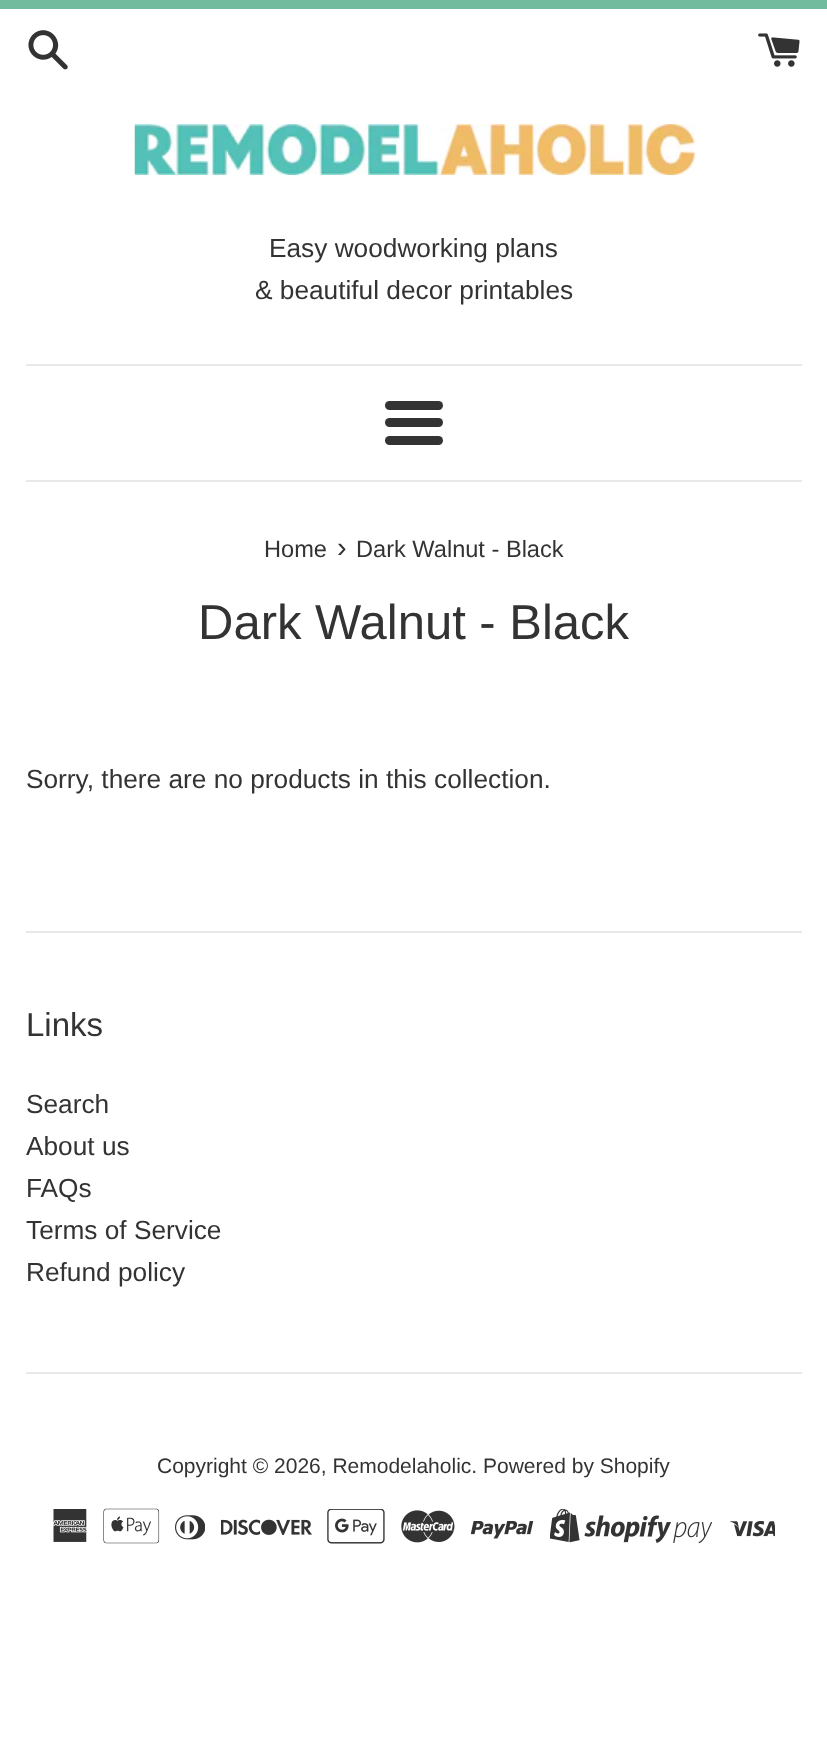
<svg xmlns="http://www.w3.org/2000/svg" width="827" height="1757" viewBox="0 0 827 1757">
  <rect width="100%" height="100%" fill="rgb(255,255,255)"/>
  <rect x="0" y="0" width="827" height="9" fill="rgb(114,187,158)"/>
  <image x="28" y="30" width="40" height="40" href="pic1.png"/>
  <image x="758" y="33" width="42" height="34" href="pic2.png"/>
  <image x="134" y="124" width="561" height="51" href="pic3.png"/>
  <g font-family="Liberation Sans" font-size="26.25" fill="rgb(51,51,51)">
    <text x="269" y="257">Easy woodworking plans</text>
    <text x="255" y="299">&amp; beautiful decor printables</text>
  </g>
  <rect x="26" y="364" width="776" height="2" fill="rgb(232,232,232)"/>
  <rect x="385" y="401" width="58" height="9" rx="4.5" fill="rgb(51,51,51)"/>
  <rect x="385" y="418" width="58" height="9" rx="4.5" fill="rgb(51,51,51)"/>
  <rect x="385" y="436" width="58" height="9" rx="4.5" fill="rgb(51,51,51)"/>
  <rect x="26" y="480" width="776" height="2" fill="rgb(232,232,232)"/>
  <text x="264" y="557" font-family="Liberation Sans" font-size="23.6" fill="rgb(51,51,51)">Home</text>
  <text x="337" y="557" font-family="Liberation Sans" font-size="29" fill="rgb(51,51,51)">›</text>
  <text x="356" y="557" font-family="Liberation Sans" font-size="23.6" fill="rgb(51,51,51)">Dark Walnut - Black</text>
  <text x="198" y="639" font-family="Liberation Sans" font-size="49" fill="rgb(51,51,51)">Dark Walnut - Black</text>
  <text x="26" y="788" font-family="Liberation Sans" font-size="26.25" fill="rgb(51,51,51)">Sorry, there are no products in this collection.</text>
  <rect x="26" y="931" width="776" height="2" fill="rgb(232,232,232)"/>
  <text x="26" y="1036" font-family="Liberation Sans" font-size="33" fill="rgb(51,51,51)">Links</text>
  <g font-family="Liberation Sans" font-size="26.25" fill="rgb(51,51,51)">
    <text>
      <tspan x="26" y="1113">Search</tspan>
      <tspan x="26" y="1155">About us</tspan>
      <tspan x="26" y="1197">FAQs</tspan>
      <tspan x="26" y="1239">Terms of Service</tspan>
      <tspan x="26" y="1281">Refund policy</tspan>
    </text>
  </g>
  <rect x="26" y="1372" width="776" height="2" fill="rgb(232,232,232)"/>
  <text x="157" y="1473" font-family="Liberation Sans" font-size="21" fill="rgb(51,51,51)">Copyright © 2026, Remodelaholic. Powered by Shopify</text>
  <image x="53" y="1509" width="34" height="33" href="pic4.png"/>
  <image x="103" y="1508" width="57" height="36" href="pic5.png"/>
  <image x="175" y="1515" width="30" height="25" href="pic6.png"/>
  <image x="221" y="1519" width="91" height="16" href="pic7.png"/>
  <image x="327" y="1509" width="58" height="35" href="pic8.png"/>
  <image x="401" y="1510" width="54" height="33" href="pic9.png"/>
  <image x="471" y="1521" width="63" height="18" href="pic10.png"/>
  <image x="550" y="1509" width="162" height="35" href="pic11.png"/>
  <image x="730" y="1521" width="45" height="16" href="pic12.png"/>
</svg>
